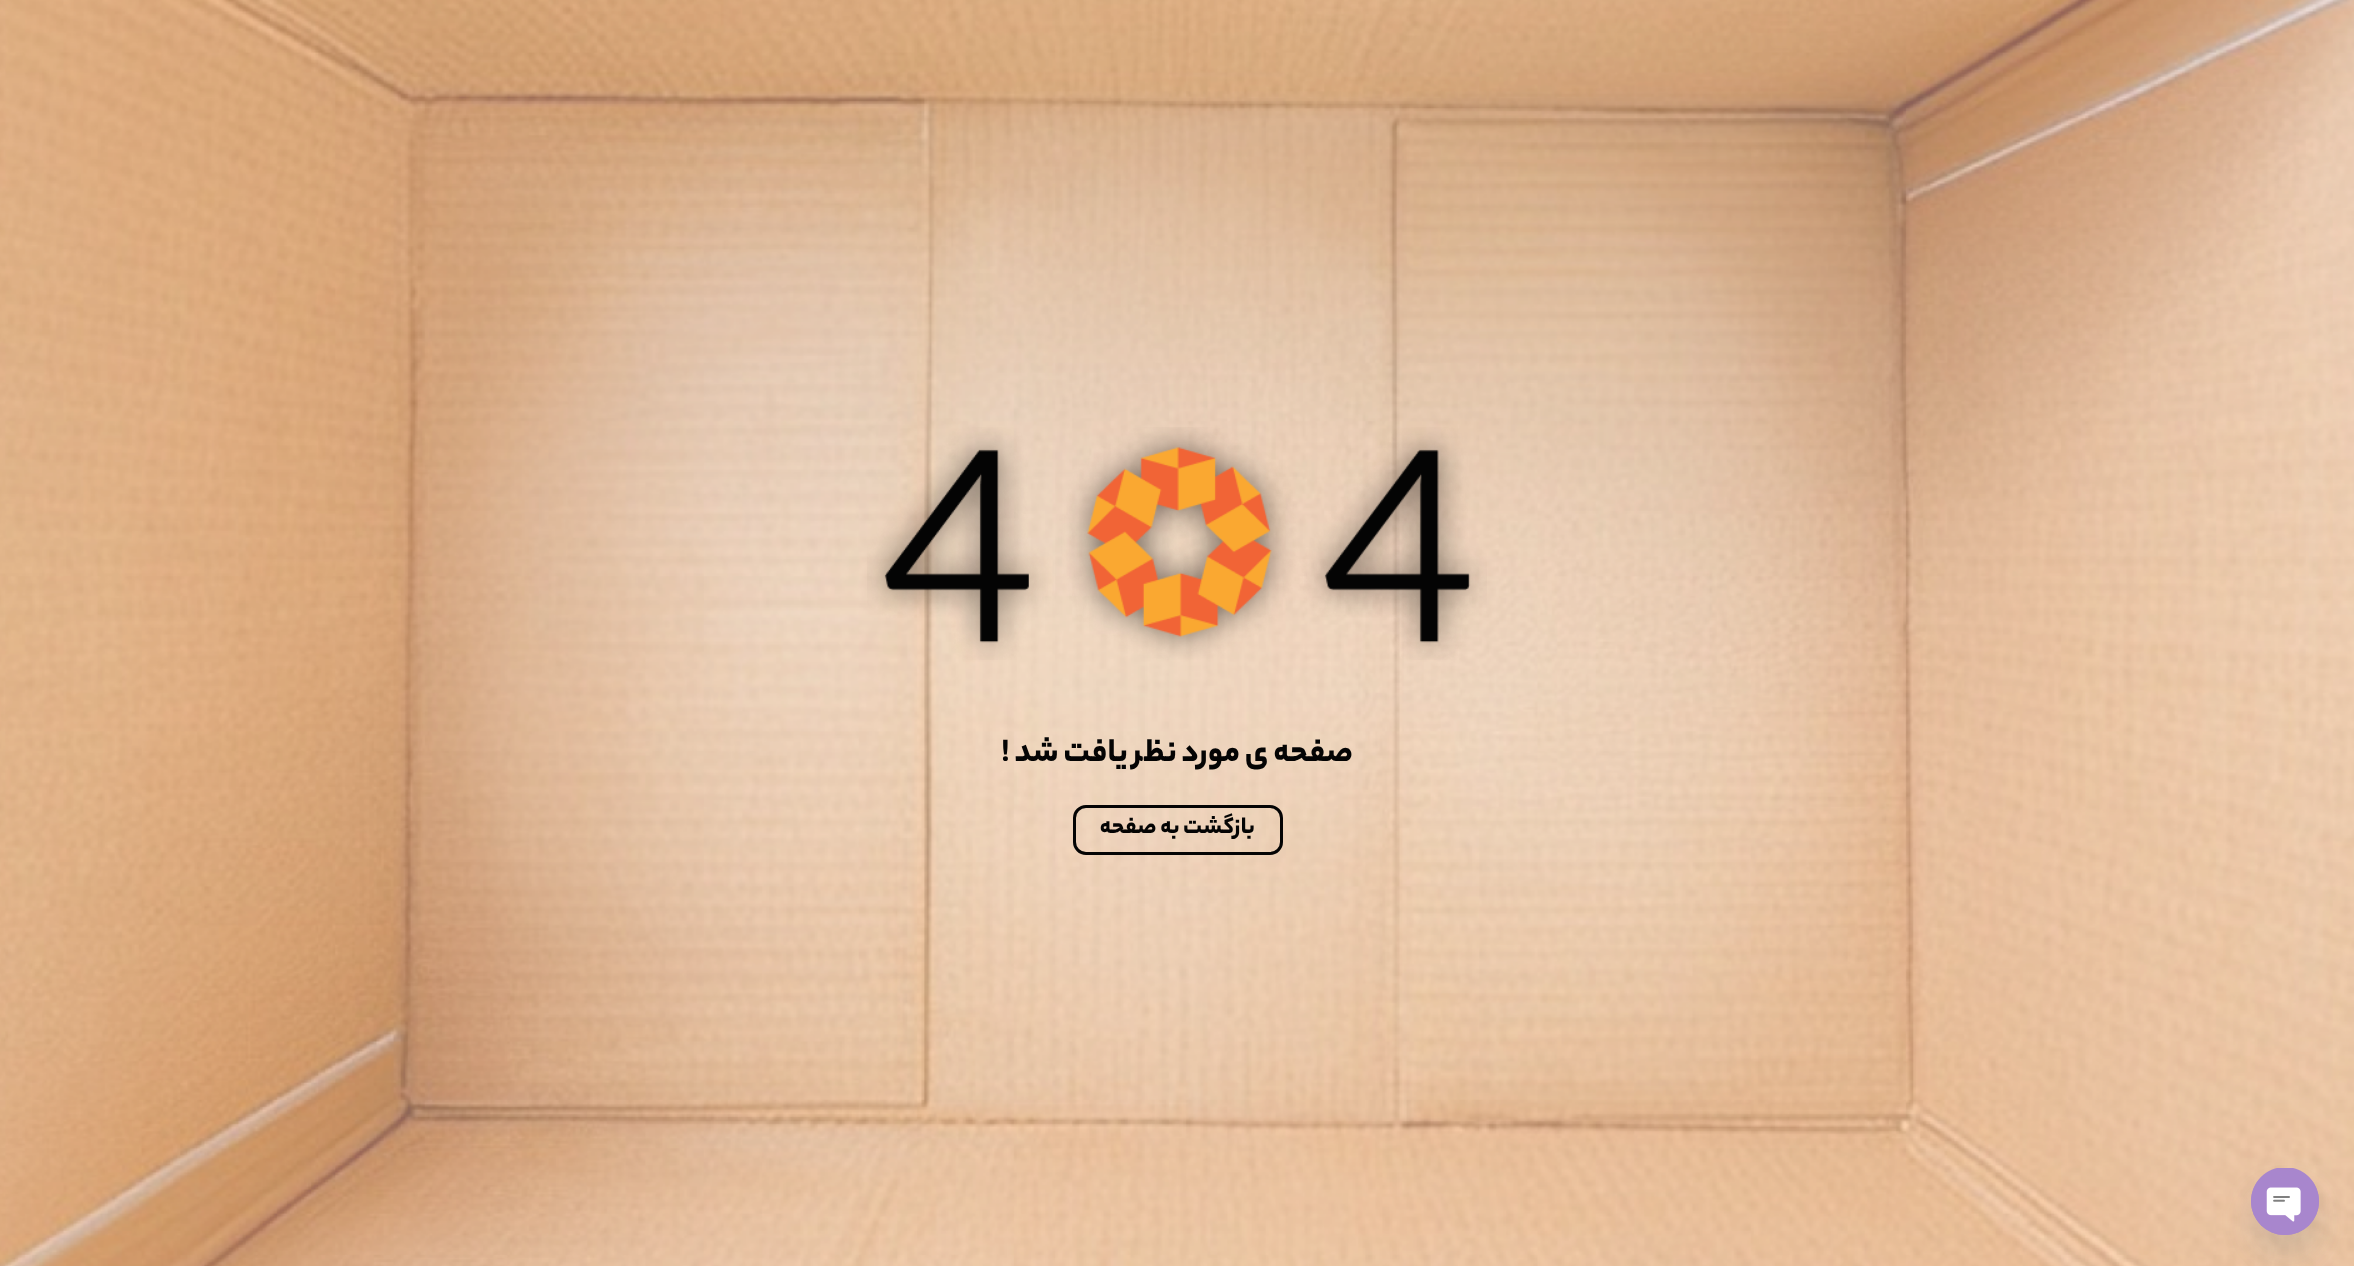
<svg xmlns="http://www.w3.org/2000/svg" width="2354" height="1266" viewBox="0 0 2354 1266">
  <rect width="100%" height="100%" fill="rgb(255,255,255)"/>
  <image x="0" y="0" width="2354" height="1266" href="pic1.png"/>
  <image x="867" y="427" width="620" height="233" href="pic2.png"/>
  <text x="1353" y="761" font-family="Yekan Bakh" font-size="35" font-weight="900" direction="rtl" fill="rgb(4,4,4)">صفحه ی مورد نظر یافت شد !</text>
  <rect x="1074.5" y="806.5" width="207" height="47" rx="11.5" fill="none" stroke="rgb(4,4,4)" stroke-width="3"/>
  <text x="1255" y="833" font-family="Yekan Bakh" font-size="25" font-weight="900" direction="rtl" fill="rgb(4,4,4)">بازگشت به صفحه</text>
  <rect x="2251" y="1188" width="68" height="67" rx="33.5" fill="rgba(73,104,126,0.16)" filter="blur(15px)"/>
  <rect x="2251" y="1168" width="68" height="67" rx="33.5" fill="rgb(168,134,205)"/>
  <image x="2251" y="1168" width="68" height="67" href="pic3.png"/>
</svg>
